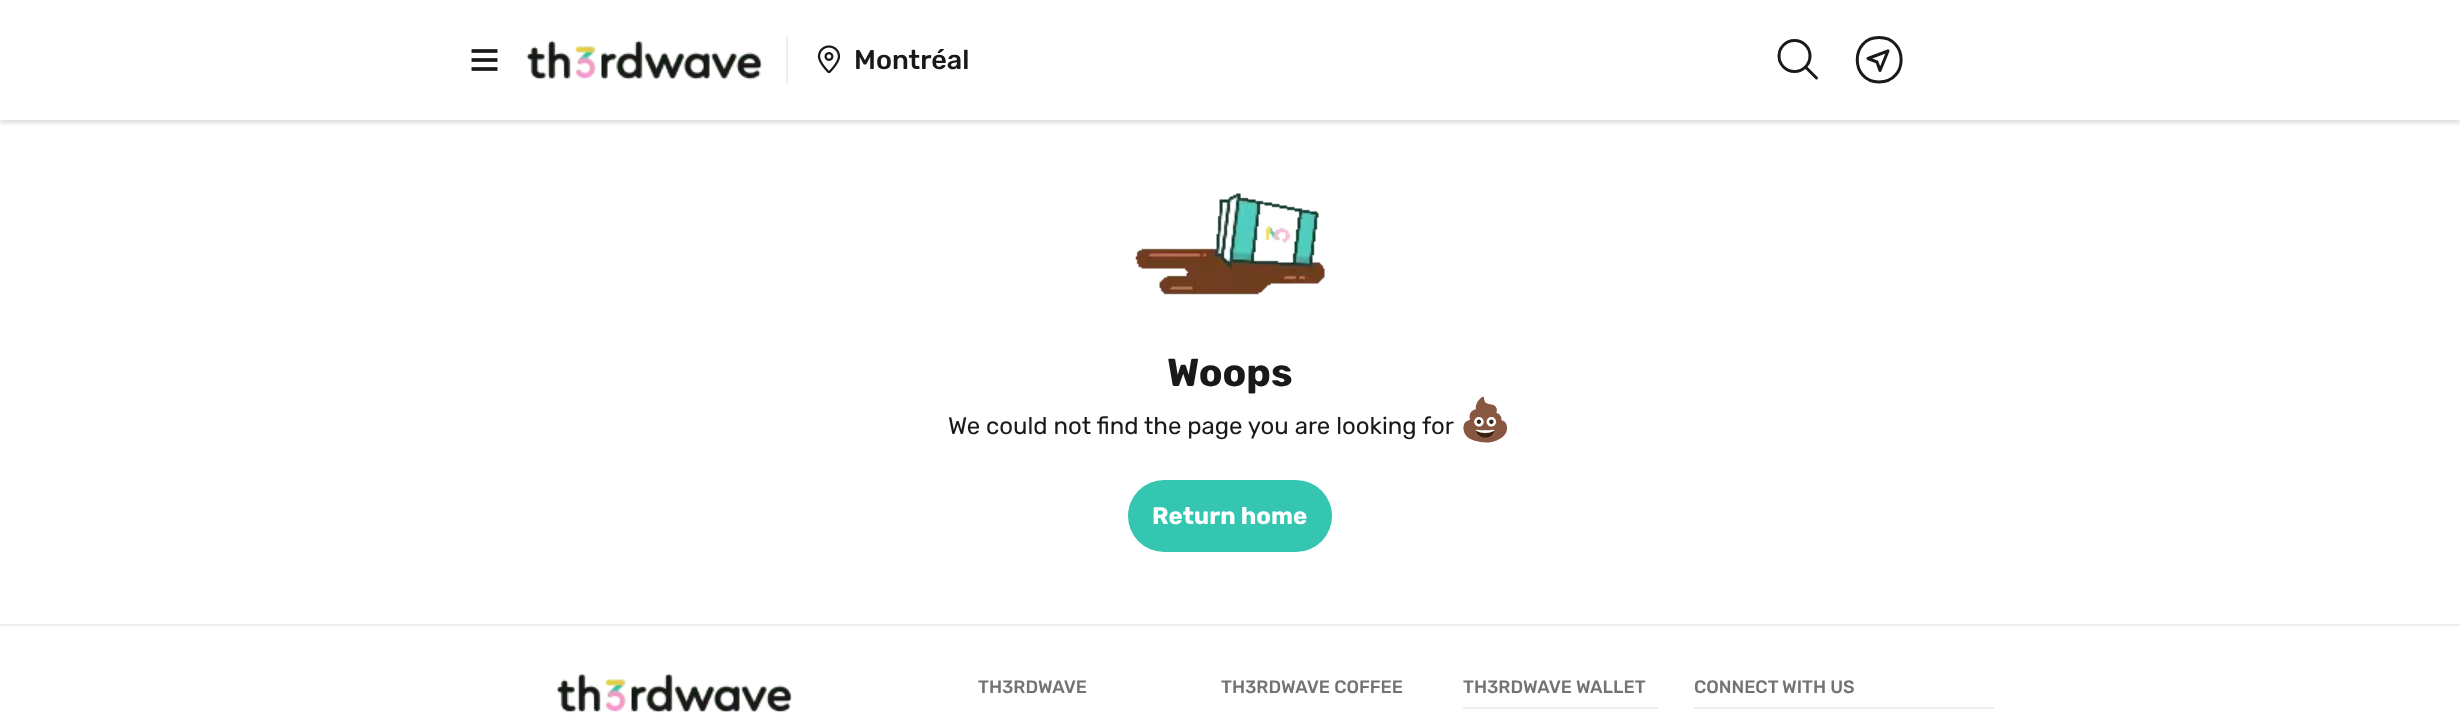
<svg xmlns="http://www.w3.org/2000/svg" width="2460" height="713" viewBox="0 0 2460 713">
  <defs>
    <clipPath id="clip1"><rect x="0" y="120" width="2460" height="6"/></clipPath>
  </defs>
  <rect width="100%" height="100%" fill="rgb(255,255,255)"/>
  <g clip-path="url(#clip1)">
    <rect x="0" y="2" width="2460" height="120" fill="rgba(0,0,0,0.18)" filter="blur(3px)"/>
  </g>
  <image x="471" y="49" width="27" height="22" href="pic1.png"/>
  <image x="526" y="40" width="236" height="40" href="pic2.png"/>
  <rect x="786" y="36" width="2" height="48" fill="rgb(238,238,238)"/>
  <image x="817" y="45" width="24" height="29" href="pic3.png"/>
  <text x="854" y="69" font-family="Rubik" font-size="27" font-weight="500" fill="rgb(25,25,25)">Montréal</text>
  <circle cx="1794.5" cy="56" r="15.5" fill="none" stroke="rgb(25,25,25)" stroke-width="3"/>
  <path d="M1805.5 67L1816.5 78" fill="none" stroke="rgb(25,25,25)" stroke-width="3" stroke-linecap="round" stroke-linejoin="round"/>
  <path d="M1879 82C1850 82 1850 37.5 1879 37.5C1908.5 37.5 1908.5 82 1879 82ZM1868 58.5L1877 62L1880 70.5L1888 51Z" fill="none" stroke="rgb(25,25,25)" stroke-width="3" stroke-linejoin="round"/>
  <image x="1135" y="193" width="190" height="102" href="pic4.png"/>
  <text x="1167" y="386" font-family="Rubik" font-size="39" font-weight="bold" fill="rgb(25,25,25)">Woops</text>
  <text x="948" y="434" font-family="Rubik" font-size="24" fill="rgb(25,25,25)">We could not find the page you are looking for</text>
  <text x="1459" y="434" font-family="Noto Color Emoji" font-size="42" fill="rgb(25,25,25)">💩</text>
  <rect x="1128" y="480" width="204" height="72" rx="36" fill="rgb(52,198,177)"/>
  <text x="1152" y="524" font-family="Rubik" font-size="24" font-weight="bold" fill="rgb(255,255,255)">Return home</text>
  <rect x="0" y="624" width="2460" height="2" fill="rgb(238,238,238)"/>
  <image x="556" y="673" width="236" height="40" href="pic5.png"/>
  <g font-family="Rubik" font-size="18" font-weight="500" fill="rgb(115,115,115)">
    <text x="978" y="693">TH3RDWAVE</text>
    <text x="1221" y="693">TH3RDWAVE COFFEE</text>
    <text x="1463" y="693">TH3RDWAVE WALLET</text>
  </g>
  <rect x="1463" y="707" width="195" height="2" fill="rgb(238,238,238)"/>
  <text x="1694" y="693" font-family="Rubik" font-size="18" font-weight="500" fill="rgb(115,115,115)">CONNECT WITH US</text>
  <rect x="1694" y="707" width="300" height="2" fill="rgb(238,238,238)"/>
</svg>
